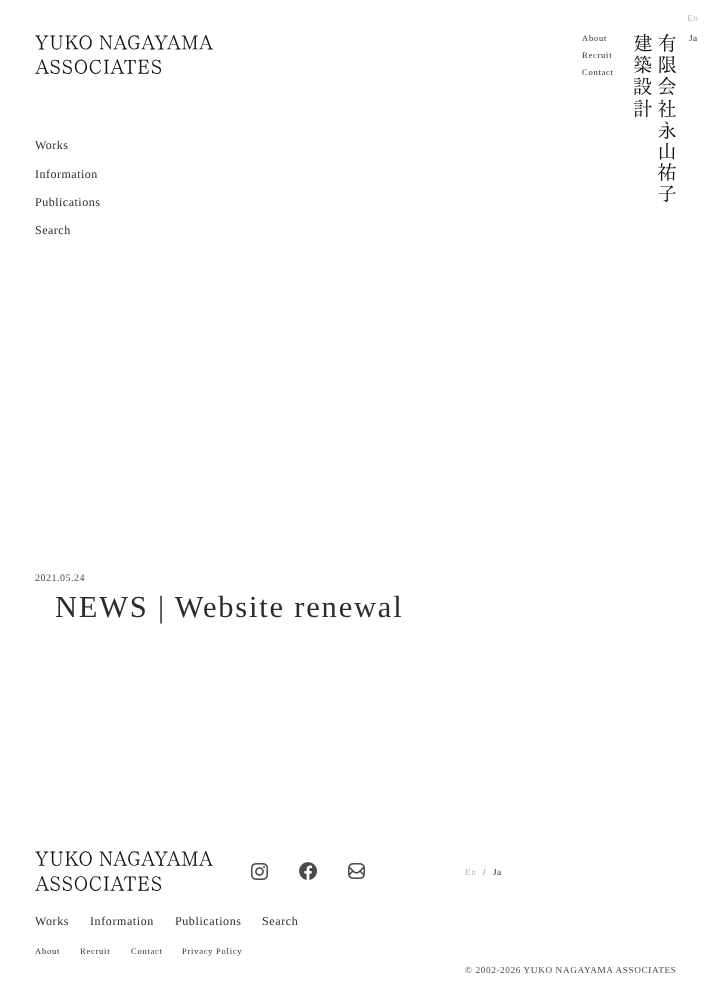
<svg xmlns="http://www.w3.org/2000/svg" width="711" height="994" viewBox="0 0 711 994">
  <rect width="100%" height="100%" fill="rgb(255,255,255)"/>
  <text x="687" y="21" font-family="Liberation Serif" font-size="9.25" letter-spacing="0.5" fill="rgb(186,186,186)">En</text>
  <text x="689" y="41" font-family="Liberation Serif" font-size="9.25" letter-spacing="0.5" fill="rgb(44,44,44)">Ja</text>
  <text x="582" y="41" font-family="Liberation Serif" font-size="8.5" letter-spacing="0.75" fill="rgb(44,44,44)">About</text>
  <image x="634" y="34" width="42" height="168" href="pic1.png"/>
  <g font-family="Liberation Serif" font-size="8.5" letter-spacing="0.75" fill="rgb(44,44,44)">
    <text x="582" y="58">Recruit</text>
    <text x="582" y="75">Contact</text>
  </g>
  <image x="35" y="35" width="178" height="39" href="pic2.png"/>
  <g font-family="Liberation Serif" font-size="12" letter-spacing="0.5" fill="rgb(44,44,44)">
    <text x="35" y="149">Works</text>
    <text x="35" y="178">Information</text>
    <text x="35" y="206">Publications</text>
    <text x="35" y="234">Search</text>
  </g>
  <text x="35" y="581" font-family="Liberation Serif" font-size="10" letter-spacing="0.5" fill="rgb(75,74,74)">2021.05.24</text>
  <text x="55" y="617" font-family="Liberation Serif" font-size="30.5" letter-spacing="1.8" fill="rgb(44,44,44)">NEWS | Website renewal</text>
  <image x="35" y="851" width="178" height="40" href="pic3.png"/>
  <image x="251" y="863" width="17" height="17" href="pic4.png"/>
  <image x="299" y="862" width="18" height="18" href="pic5.png"/>
  <image x="348" y="863" width="17" height="16" href="pic6.png"/>
  <g font-family="Liberation Serif" font-size="12" letter-spacing="0.6" fill="rgb(44,44,44)">
    <text x="35" y="925">Works</text>
    <text x="90" y="925">Information</text>
    <text x="175" y="925">Publications</text>
    <text x="262" y="925">Search</text>
  </g>
  <g font-family="Liberation Serif" font-size="8.5" letter-spacing="0.75" fill="rgb(44,44,44)">
    <text x="35" y="954">About</text>
    <text x="80" y="954">Recruit</text>
    <text x="131" y="954">Contact</text>
    <text x="182" y="954">Privacy Policy</text>
  </g>
  <text x="465" y="875" font-family="Liberation Serif" font-size="9.25" letter-spacing="0.5" fill="rgb(186,186,186)">En</text>
  <text x="483" y="875" font-family="Liberation Serif" font-size="9.25" letter-spacing="0.5" fill="rgb(75,74,74)">/</text>
  <text x="493" y="875" font-family="Liberation Serif" font-size="9.25" letter-spacing="0.5" fill="rgb(44,44,44)">Ja</text>
  <text x="465" y="973" font-family="Liberation Serif" font-size="9.25" letter-spacing="0.6" fill="rgb(75,74,74)">© 2002-2026 YUKO NAGAYAMA ASSOCIATES</text>
</svg>
